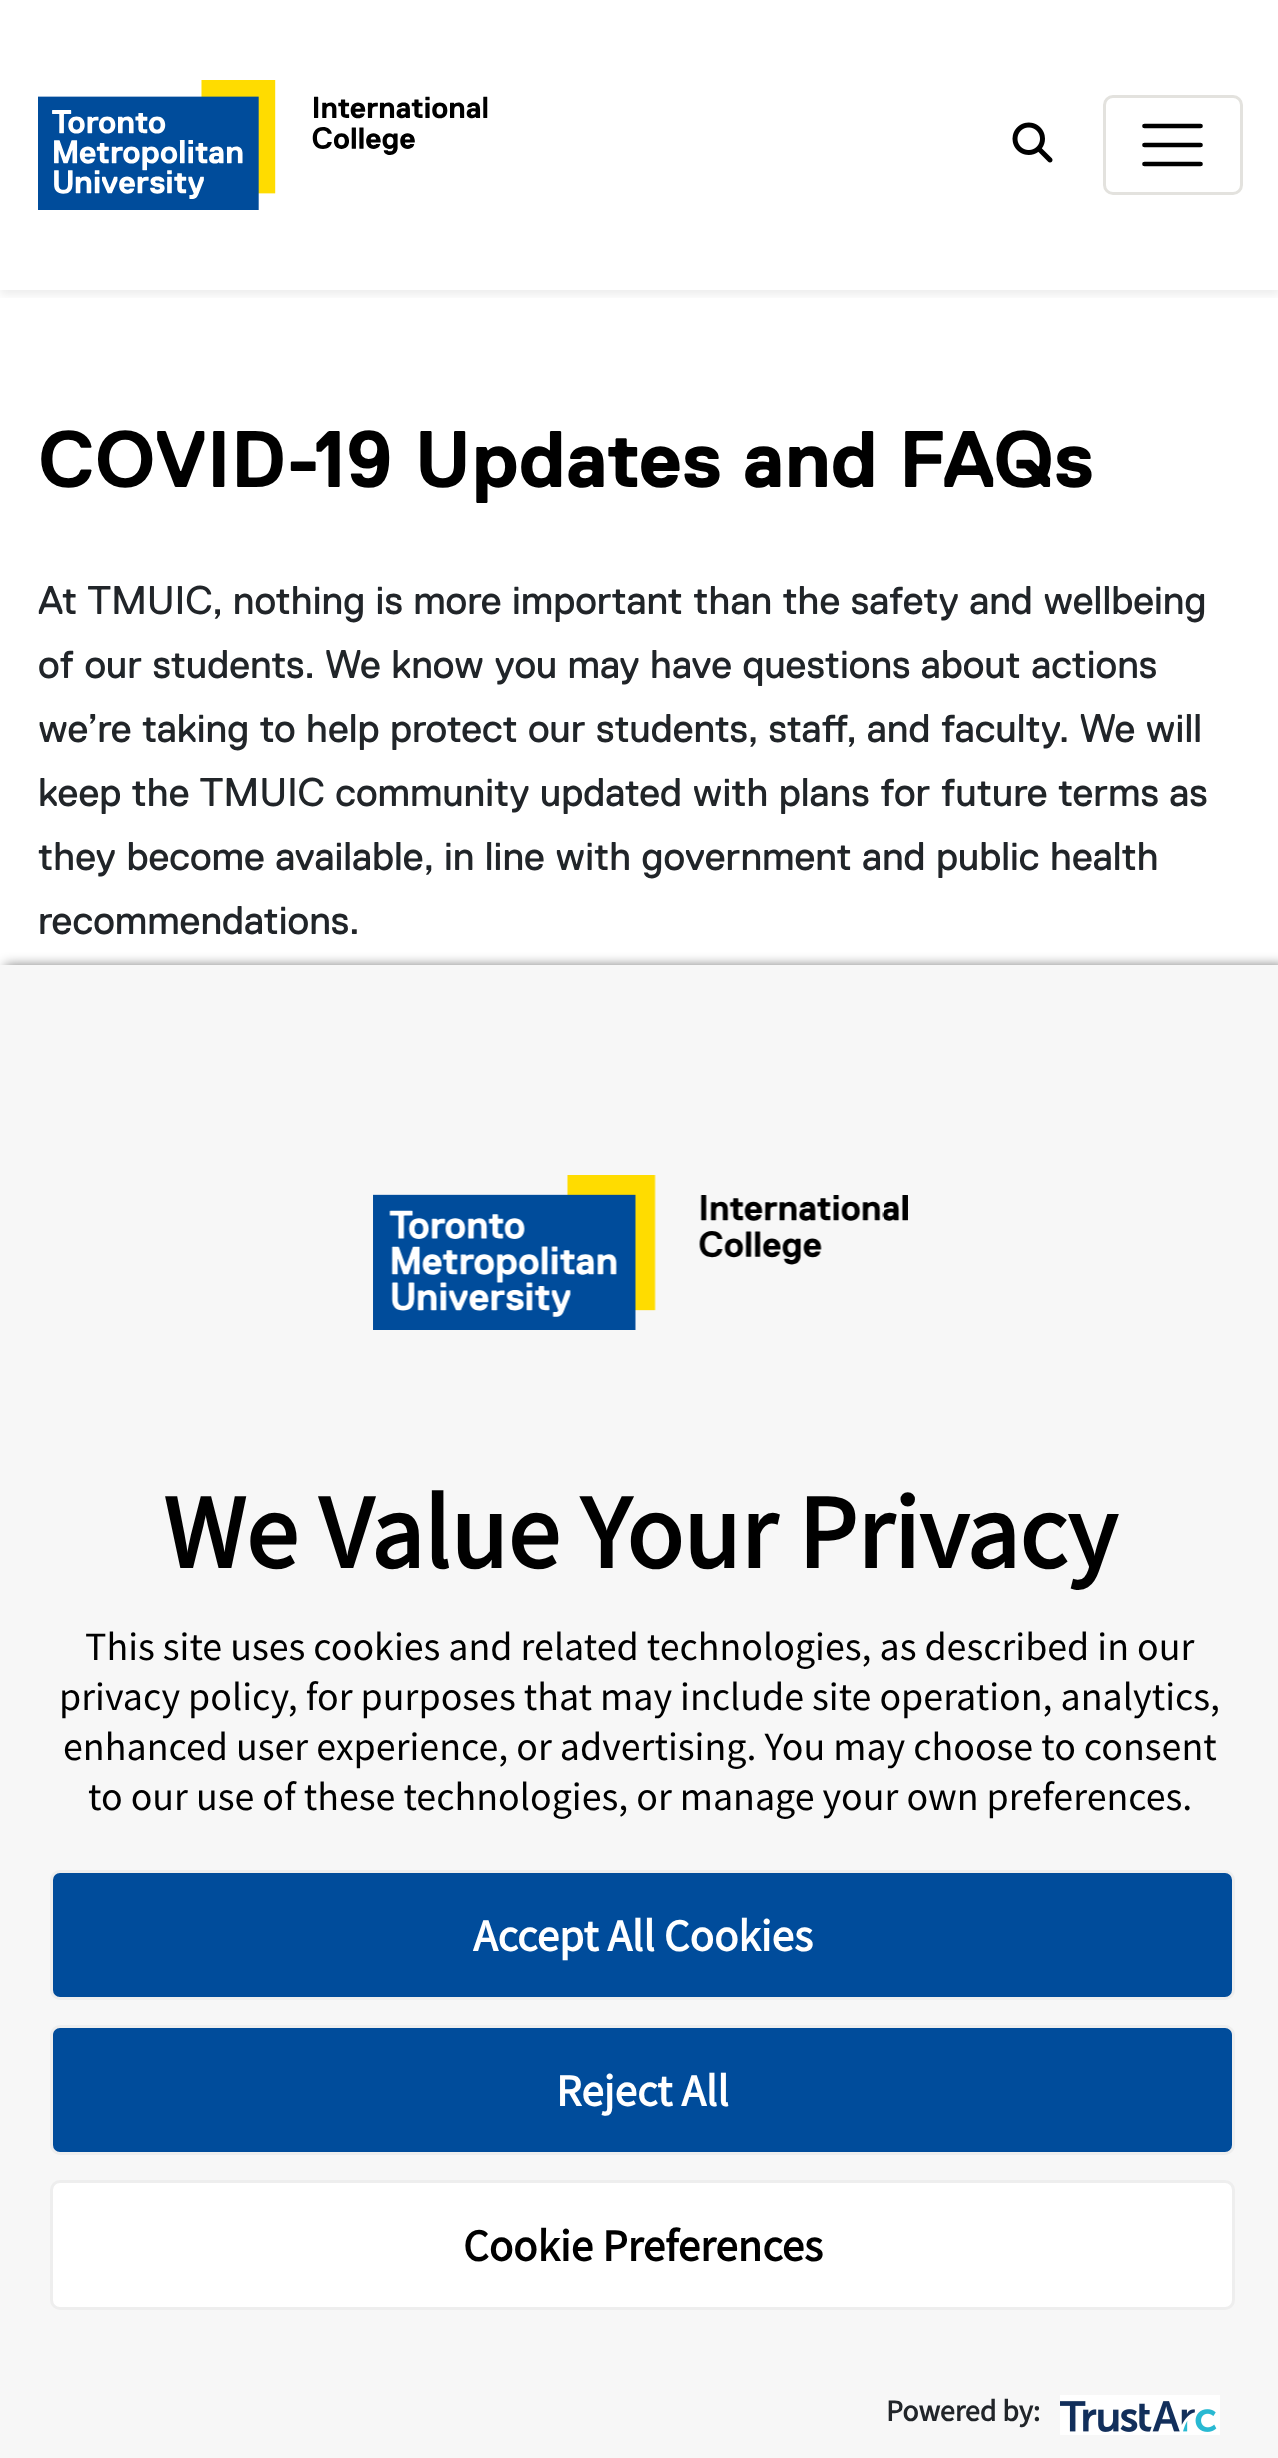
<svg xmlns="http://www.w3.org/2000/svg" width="1278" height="2458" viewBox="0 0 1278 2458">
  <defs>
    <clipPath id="clip1"><rect x="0" y="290" width="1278" height="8"/></clipPath>
  </defs>
  <rect width="100%" height="100%" fill="rgb(255,255,255)"/>
  <g clip-path="url(#clip1)">
    <rect x="0" y="5" width="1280" height="290" fill="rgba(0,0,0,0.07)" filter="blur(5px)"/>
  </g>
  <image x="38" y="80" width="450" height="130" href="pic1.png"/>
  <image x="1012" y="122" width="41" height="41" href="pic2.png"/>
  <rect x="1104.5" y="96.5" width="137" height="97" rx="8.5" fill="none" stroke="rgb(227,226,222)" stroke-width="3"/>
  <path d="M1144.5 126H1200.5M1144.5 145H1200.5M1144.5 164H1200.5" fill="none" stroke="rgb(0,0,0)" stroke-width="4.7" stroke-linecap="round"/>
  <text x="38" y="487" font-family="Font" font-size="80" font-weight="bold" fill="rgb(0,0,0)">COVID-19 Updates and FAQs</text>
  <g font-family="Font" font-size="40" fill="rgb(33,37,41)">
    <text>
      <tspan x="38" y="614">At TMUIC, nothing is more important than the safety and wellbeing</tspan>
      <tspan x="38" y="678">of our students. We know you may have questions about actions</tspan>
      <tspan x="38" y="742">we’re taking to help protect our students, staff, and faculty. We will</tspan>
      <tspan x="38" y="806">keep the TMUIC community updated with plans for future terms as</tspan>
      <tspan x="38" y="870">they become available, in line with government and public health</tspan>
      <tspan x="38" y="934">recommendations.</tspan>
    </text>
  </g>
  <rect x="5" y="965" width="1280" height="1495" fill="rgba(0,0,0,0.5)" filter="blur(6px)"/>
  <rect x="0" y="965" width="1278" height="1493" fill="rgb(247,247,247)"/>
  <image x="373" y="1175" width="535" height="155" href="pic3.png"/>
  <text x="163" y="1568" font-family="Source Sans Pro" font-size="105" font-weight="bold" fill="rgb(0,0,0)">We Value Your Privacy</text>
  <g font-family="Source Sans Pro" font-size="40" fill="rgb(0,0,0)">
    <text x="85" y="1660">This site uses cookies and related technologies, as described in our</text>
    <text x="59" y="1710">privacy policy, for purposes that may include site operation, analytics,</text>
    <text x="63" y="1760">enhanced user experience, or advertising. You may choose to consent</text>
    <text x="88" y="1810">to our use of these technologies, or manage your own preferences.</text>
  </g>
  <rect x="51.5" y="1871.5" width="1182" height="127" rx="8.5" fill="rgb(0,76,155)" stroke="rgb(238,238,238)" stroke-width="3"/>
  <text x="473" y="1951" font-family="Source Sans Pro" font-size="45" font-weight="bold" fill="rgb(255,255,255)">Accept All Cookies</text>
  <rect x="51.5" y="2026.5" width="1182" height="127" rx="8.5" fill="rgb(0,76,155)" stroke="rgb(238,238,238)" stroke-width="3"/>
  <text x="556" y="2106" font-family="Source Sans Pro" font-size="45" font-weight="bold" fill="rgb(255,255,255)">Reject All</text>
  <rect x="51.5" y="2181.5" width="1182" height="127" rx="8.5" fill="rgb(255,255,255)" stroke="rgb(238,238,238)" stroke-width="3"/>
  <text x="463" y="2261" font-family="Source Sans Pro" font-size="45" font-weight="bold" fill="rgb(0,0,0)">Cookie Preferences</text>
  <text x="886" y="2421" font-family="Source Sans Pro" font-size="30" font-weight="bold" fill="rgb(33,37,41)">Powered by:</text>
  <image x="1060" y="2395" width="160" height="40" href="pic4.png"/>
</svg>
